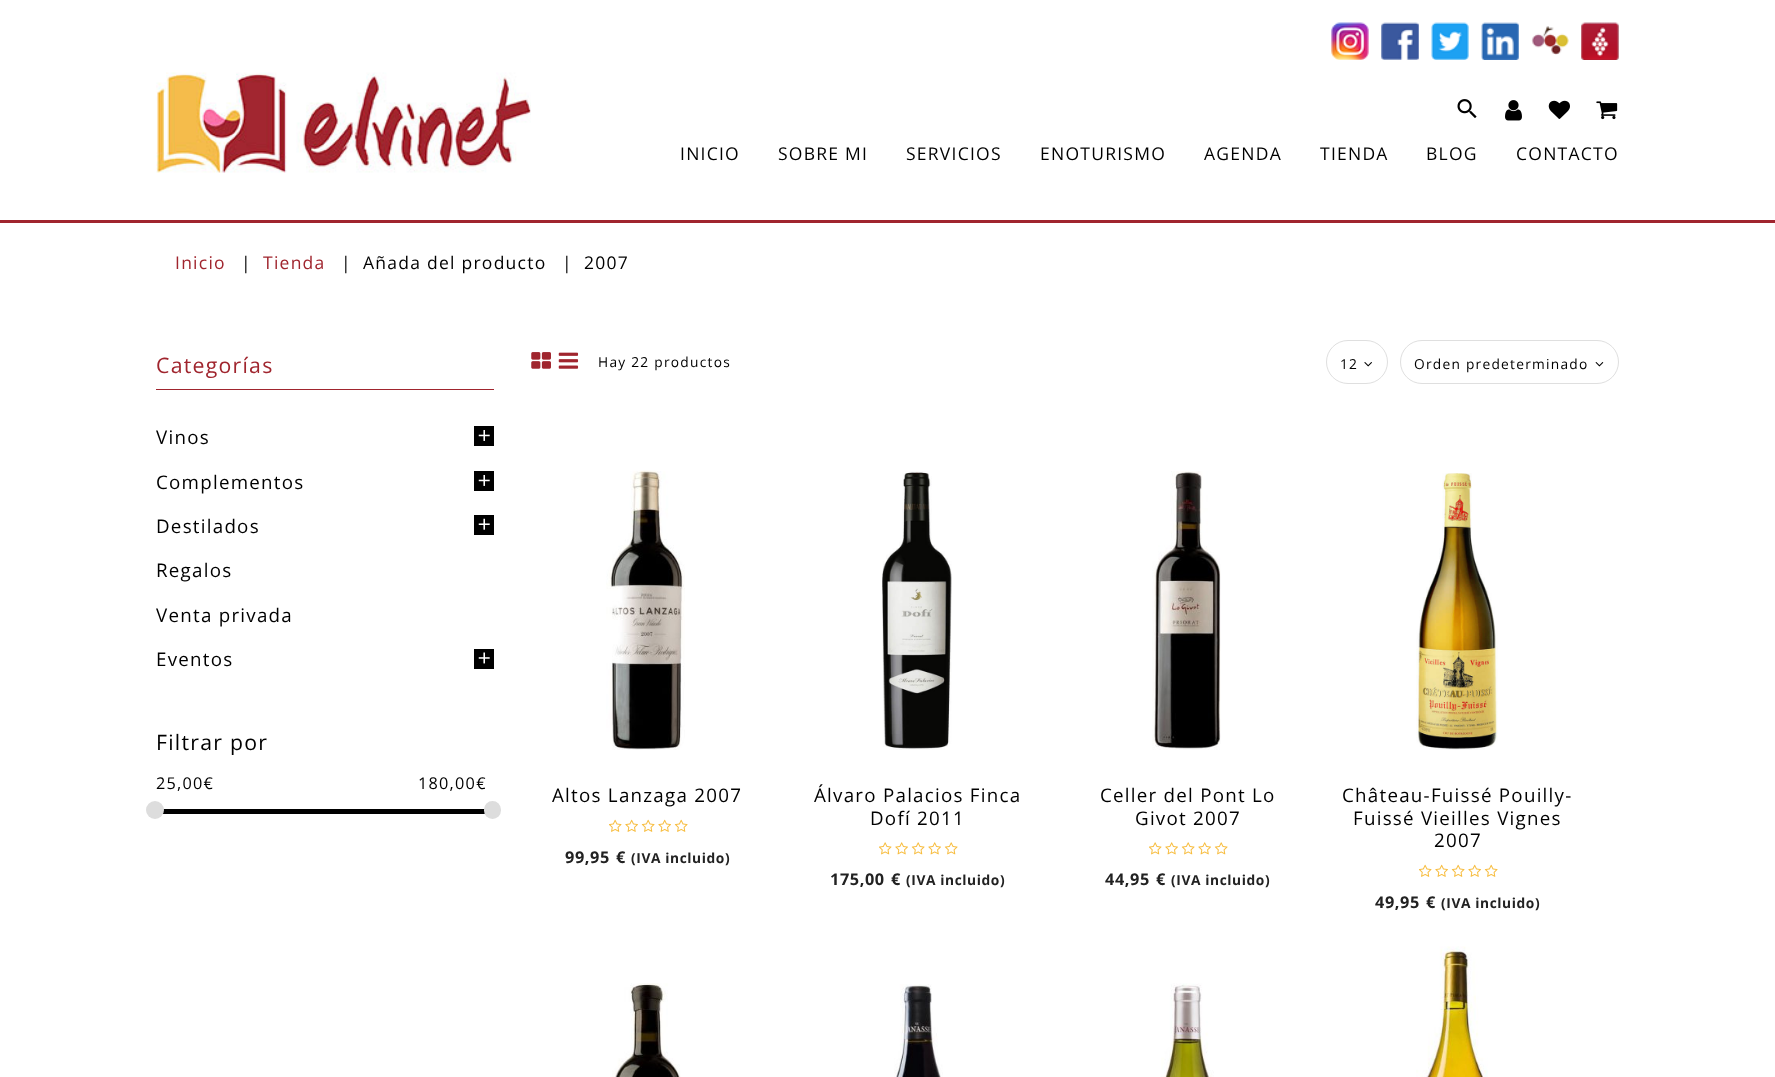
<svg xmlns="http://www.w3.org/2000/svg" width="1775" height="1077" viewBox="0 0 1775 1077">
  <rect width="100%" height="100%" fill="rgb(255,255,255)"/>
  <rect x="0" y="220" width="1775" height="3" fill="rgb(160,37,46)"/>
  <image x="1331" y="22" width="38" height="38" href="pic1.png"/>
  <image x="1381" y="22" width="38" height="38" href="pic2.png"/>
  <image x="1431" y="22" width="38" height="38" href="pic3.png"/>
  <image x="1481" y="22" width="38" height="38" href="pic4.png"/>
  <image x="1531" y="26" width="38" height="29" href="pic5.png"/>
  <image x="1581" y="22" width="38" height="38" href="pic6.png"/>
  <image x="156" y="72" width="375" height="101" href="pic7.png"/>
  <image x="1457" y="99" width="20" height="19" href="pic8.png"/>
  <image x="1505" y="100" width="17" height="21" href="pic9.png"/>
  <image x="1548" y="100" width="22" height="19" href="pic10.png"/>
  <image x="1596" y="101" width="22" height="19" href="pic11.png"/>
  <g font-family="Open Sans" font-size="17.5" letter-spacing="1.25" fill="rgb(0,0,0)">
    <text x="680" y="160">INICIO</text>
    <text x="778" y="160">SOBRE MI</text>
    <text x="906" y="160">SERVICIOS</text>
    <text x="1040" y="160">ENOTURISMO</text>
    <text x="1204" y="160">AGENDA</text>
    <text x="1320" y="160">TIENDA</text>
    <text x="1426" y="160">BLOG</text>
    <text x="1516" y="160">CONTACTO</text>
  </g>
  <text x="175" y="269" font-family="Open Sans" font-size="17.5" letter-spacing="1.25" fill="rgb(160,37,46)">Inicio</text>
  <text x="241" y="269" font-family="Open Sans" font-size="17.5" letter-spacing="1.25" fill="rgb(0,0,0)">|</text>
  <text x="263" y="269" font-family="Open Sans" font-size="17.5" letter-spacing="1.25" fill="rgb(160,37,46)">Tienda</text>
  <g font-family="Open Sans" font-size="17.5" letter-spacing="1.25" fill="rgb(0,0,0)">
    <text x="341" y="269">|</text>
    <text x="363" y="269">Añada del producto</text>
    <text x="562" y="269">|</text>
    <text x="584" y="269">2007</text>
  </g>
  <rect x="156" y="389" width="338" height="1" fill="rgb(160,37,46)"/>
  <text x="156" y="373" font-family="Open Sans" font-size="21.25" letter-spacing="1.25" fill="rgb(160,37,46)">Categorías</text>
  <text x="156" y="444" font-family="Open Sans" font-size="18.75" letter-spacing="1.25" fill="rgb(0,0,0)">Vinos</text>
  <rect x="474" y="426" width="20" height="20" fill="rgb(0,0,0)"/>
  <image x="478" y="430" width="12" height="11" href="pic12.png"/>
  <text x="156" y="489" font-family="Open Sans" font-size="18.75" letter-spacing="1.25" fill="rgb(0,0,0)">Complementos</text>
  <rect x="474" y="471" width="20" height="20" fill="rgb(0,0,0)"/>
  <image x="478" y="475" width="12" height="11" href="pic12.png"/>
  <text x="156" y="533" font-family="Open Sans" font-size="18.75" letter-spacing="1.25" fill="rgb(0,0,0)">Destilados</text>
  <rect x="474" y="515" width="20" height="20" fill="rgb(0,0,0)"/>
  <image x="478" y="518" width="12" height="12" href="pic13.png"/>
  <g font-family="Open Sans" font-size="18.75" letter-spacing="1.25" fill="rgb(0,0,0)">
    <text x="156" y="577">Regalos</text>
    <text x="156" y="622">Venta privada</text>
    <text x="156" y="666">Eventos</text>
  </g>
  <rect x="474" y="649" width="20" height="20" fill="rgb(0,0,0)"/>
  <image x="478" y="652" width="12" height="12" href="pic14.png"/>
  <text x="156" y="750" font-family="Open Sans" font-size="21.25" letter-spacing="1.25" fill="rgb(0,0,0)">Filtrar por</text>
  <g font-family="Open Sans" font-size="16.25" letter-spacing="1.25" fill="rgb(0,0,0)">
    <text x="156" y="789">25,00€</text>
    <text x="418" y="789">180,00€</text>
  </g>
  <rect x="156" y="809" width="329" height="5" fill="rgb(0,0,0)"/>
  <circle cx="155" cy="810" r="9" fill="rgb(221,221,221)"/>
  <rect x="484" y="801" width="17" height="18" rx="8.5" fill="rgb(221,221,221)"/>
  <image x="531" y="352" width="20" height="17" href="pic15.png"/>
  <image x="558" y="352" width="21" height="17" href="pic16.png"/>
  <text x="598" y="367" font-family="Open Sans" font-size="13.75" letter-spacing="1.25" fill="rgb(0,0,0)">Hay 22 productos</text>
  <rect x="1326.5" y="340.5" width="61" height="43" rx="21.5" fill="none" stroke="rgb(223,223,223)"/>
  <text x="1340" y="369" font-family="Open Sans" font-size="13.75" letter-spacing="1.25" fill="rgb(0,0,0)">12</text>
  <image x="1364" y="362" width="8" height="5" href="pic17.png"/>
  <rect x="1400.5" y="340.5" width="218" height="43" rx="21.5" fill="none" stroke="rgb(223,223,223)"/>
  <text x="1414" y="369" font-family="Open Sans" font-size="13.75" letter-spacing="1.25" fill="rgb(0,0,0)">Orden predeterminado</text>
  <image x="1595" y="362" width="9" height="5" href="pic18.png"/>
  <image x="606" y="470" width="79" height="280" href="pic19.png"/>
  <text x="552" y="802" font-family="Open Sans" font-size="18.75" letter-spacing="1.25" fill="rgb(0,0,0)">Altos Lanzaga 2007</text>
  <image x="609" y="819" width="79" height="13" href="pic20.png"/>
  <g font-family="Open Sans" font-size="16.25" font-weight="bold" letter-spacing="0.6" fill="rgb(34,34,34)">
    <text x="565" y="863">99,95</text>
    <text x="616" y="863">€</text>
  </g>
  <text x="631" y="863" font-family="Open Sans" font-size="13.75" font-weight="bold" letter-spacing="0.6" fill="rgb(34,34,34)">(IVA incluido)</text>
  <image x="882" y="471" width="70" height="279" href="pic21.png"/>
  <g font-family="Open Sans" font-size="18.75" letter-spacing="1.25" fill="rgb(0,0,0)">
    <text x="814" y="802">Álvaro Palacios Finca</text>
    <text x="870" y="825">Dofí 2011</text>
  </g>
  <image x="879" y="842" width="79" height="13" href="pic22.png"/>
  <g font-family="Open Sans" font-size="16.25" font-weight="bold" letter-spacing="0.6" fill="rgb(34,34,34)">
    <text x="830" y="885">175,00</text>
    <text x="891" y="885">€</text>
  </g>
  <text x="906" y="885" font-family="Open Sans" font-size="13.75" font-weight="bold" letter-spacing="0.6" fill="rgb(34,34,34)">(IVA incluido)</text>
  <image x="1152" y="471" width="69" height="279" href="pic23.png"/>
  <g font-family="Open Sans" font-size="18.75" letter-spacing="1.25" fill="rgb(0,0,0)">
    <text x="1100" y="802">Celler del Pont Lo</text>
    <text x="1135" y="825">Givot 2007</text>
  </g>
  <image x="1149" y="842" width="79" height="13" href="pic22.png"/>
  <g font-family="Open Sans" font-size="16.25" font-weight="bold" letter-spacing="0.6" fill="rgb(34,34,34)">
    <text x="1105" y="885">44,95</text>
    <text x="1156" y="885">€</text>
  </g>
  <text x="1171" y="885" font-family="Open Sans" font-size="13.75" font-weight="bold" letter-spacing="0.6" fill="rgb(34,34,34)">(IVA incluido)</text>
  <image x="1416" y="473" width="82" height="277" href="pic24.png"/>
  <g font-family="Open Sans" font-size="18.75" letter-spacing="1.25" fill="rgb(0,0,0)">
    <text x="1342" y="802">Château-Fuissé Pouilly-</text>
    <text x="1353" y="825">Fuissé Vieilles Vignes</text>
    <text x="1434" y="847">2007</text>
  </g>
  <image x="1419" y="864" width="79" height="13" href="pic20.png"/>
  <g font-family="Open Sans" font-size="16.25" font-weight="bold" letter-spacing="0.6" fill="rgb(34,34,34)">
    <text x="1375" y="908">49,95</text>
    <text x="1426" y="908">€</text>
  </g>
  <text x="1441" y="908" font-family="Open Sans" font-size="13.75" font-weight="bold" letter-spacing="0.6" fill="rgb(34,34,34)">(IVA incluido)</text>
  <image x="612" y="983" width="69" height="94" href="pic25.png"/>
  <image x="894" y="984" width="49" height="93" href="pic26.png"/>
  <image x="1161" y="983" width="53" height="94" href="pic27.png"/>
  <image x="1416" y="946" width="72" height="131" href="pic28.png"/>
</svg>
